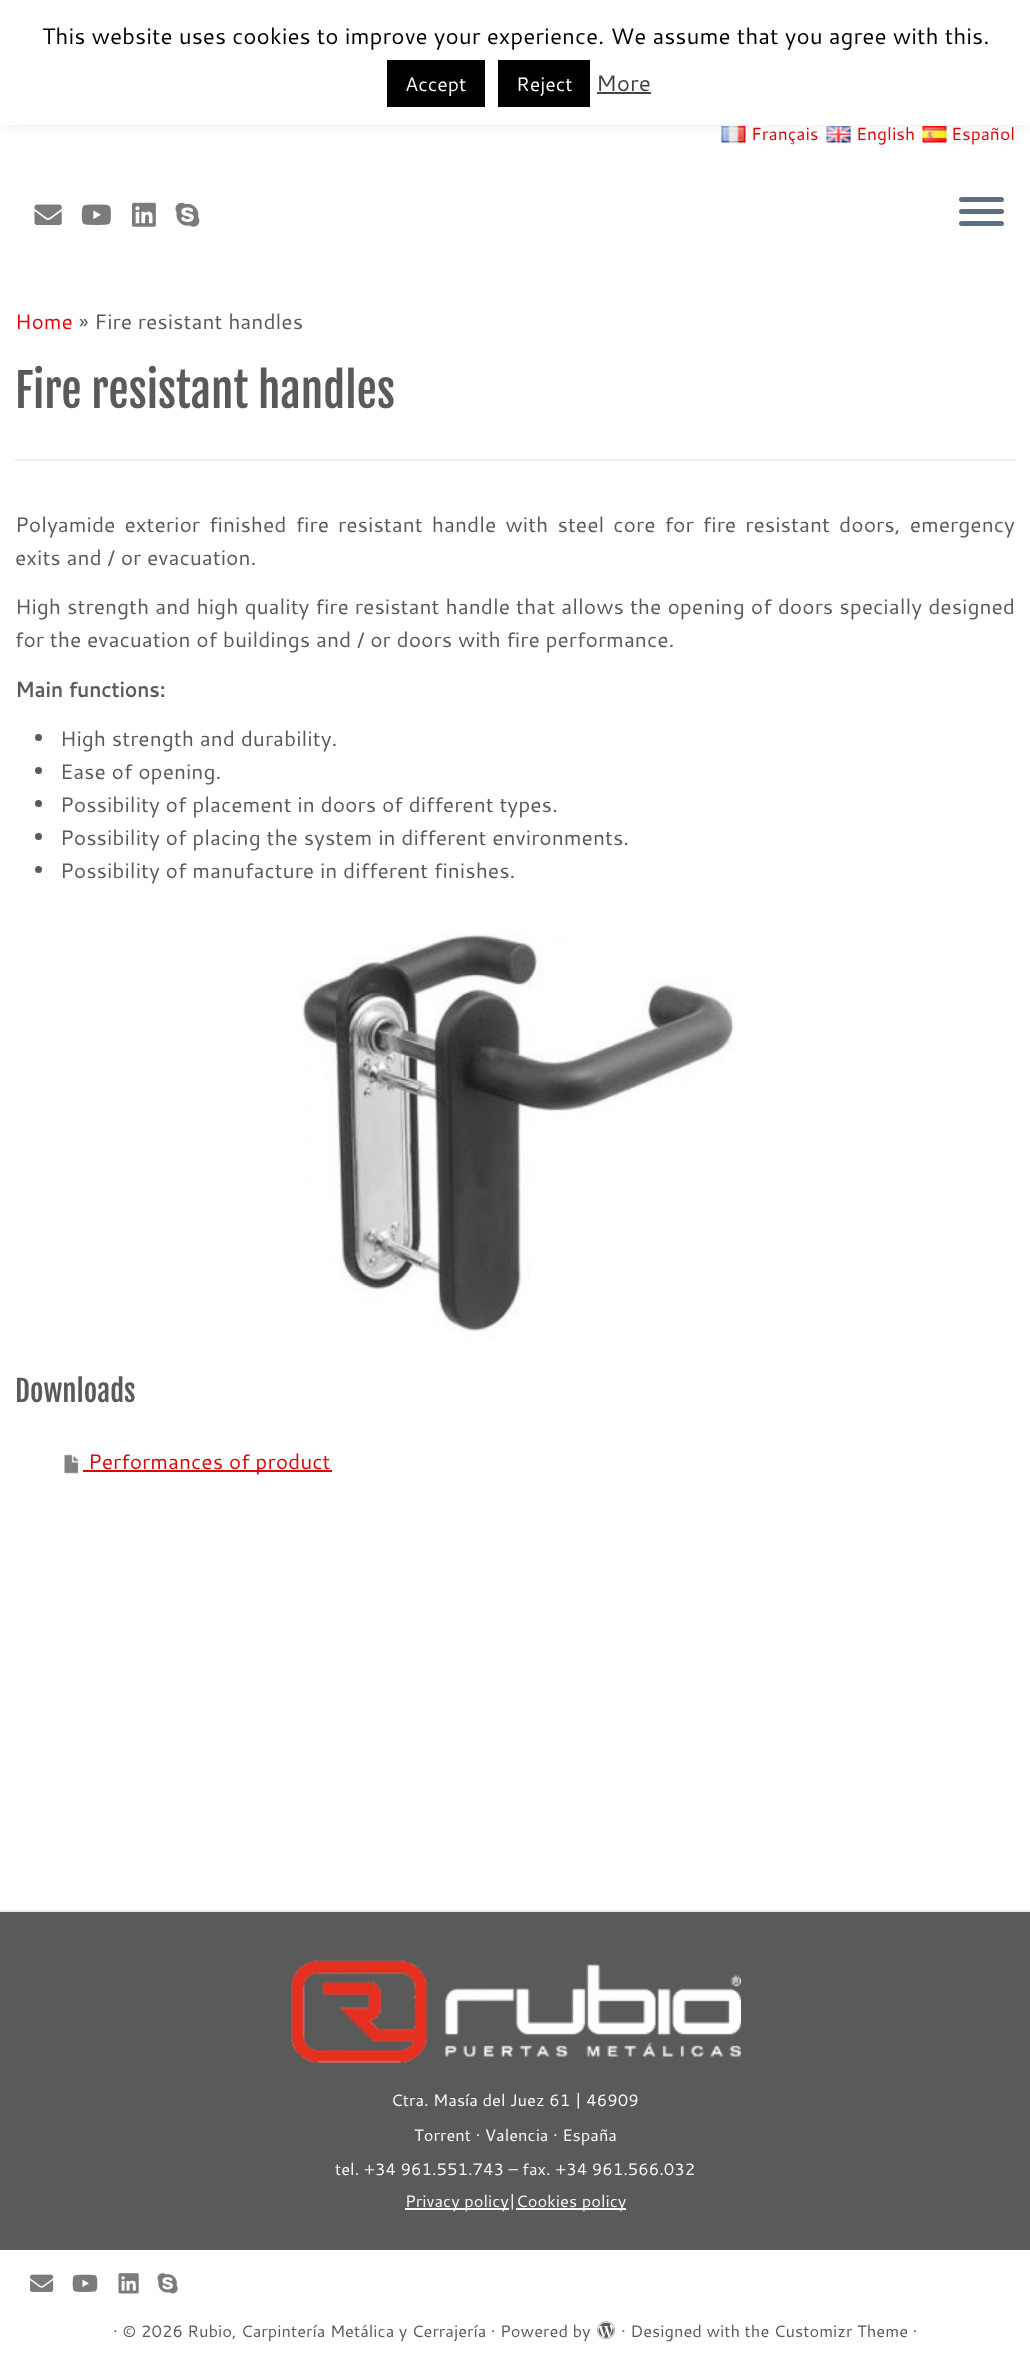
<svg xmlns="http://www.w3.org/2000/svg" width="1030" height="2368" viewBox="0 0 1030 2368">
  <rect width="100%" height="100%" fill="rgb(255,255,255)"/>
  <image x="721" y="126" width="25" height="17" href="pic1.png"/>
  <image x="826" y="126" width="25" height="17" href="pic2.png"/>
  <image x="922" y="126" width="25" height="17" href="pic3.png"/>
  <rect x="0" y="-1" width="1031" height="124" fill="rgba(172,171,171,0.3)" filter="blur(7.5px)"/>
  <rect x="0" y="0" width="1030" height="125" fill="rgb(255,255,255)"/>
  <text x="42" y="44" font-family="Cantarell" font-size="22.5" fill="rgb(0,0,0)">This website uses cookies to improve your experience. We assume that you agree with this.</text>
  <rect x="387" y="60" width="98" height="47" fill="rgb(0,0,0)"/>
  <text x="405" y="91" font-family="Cantarell" font-size="19.5" fill="rgb(250,250,250)">Accept</text>
  <rect x="498" y="60" width="92" height="47" fill="rgb(0,0,0)"/>
  <text x="516" y="91" font-family="Cantarell" font-size="19.5" fill="rgb(250,250,250)">Reject</text>
  <text x="596" y="91" font-family="Cantarell" font-size="22.5" fill="rgb(68,68,68)">More</text>
  <rect x="597" y="92" width="54" height="2" fill="rgb(68,68,68)"/>
  <g font-family="Cantarell" font-size="17.5" fill="rgb(225,7,7)">
    <text x="751" y="140">Français</text>
    <text x="856" y="140">English</text>
    <text x="951" y="140">Español</text>
  </g>
  <image x="34" y="204" width="28" height="21" href="pic4.png"/>
  <image x="81" y="204" width="30" height="21" href="pic5.png"/>
  <image x="132" y="202" width="24" height="25" href="pic6.png"/>
  <image x="175" y="202" width="25" height="25" href="pic7.png"/>
  <rect x="959" y="197" width="45" height="5" rx="2.5" fill="rgb(95,111,129)"/>
  <rect x="959" y="209" width="45" height="5" rx="2.5" fill="rgb(95,111,129)"/>
  <rect x="959" y="221" width="45" height="5" rx="2.5" fill="rgb(95,111,129)"/>
  <text x="15" y="329" font-family="Cantarell" font-size="21" fill="rgb(225,7,7)">Home</text>
  <text x="79" y="329" font-family="Cantarell" font-size="21" fill="rgb(90,90,90)">» Fire resistant handles</text>
  <text x="15" y="408" font-family="Fjalla One" font-size="45.5" fill="rgb(90,90,90)">Fire resistant handles</text>
  <rect x="15" y="459" width="1001" height="2" fill="rgb(238,238,238)"/>
  <g font-family="Cantarell" font-size="21" fill="rgb(90,90,90)">
    <text>
      <tspan x="15" y="532" word-spacing="3.4">Polyamide exterior finished fire resistant handle with steel core for fire resistant doors, emergency</tspan>
      <tspan x="15" y="565">exits and / or evacuation.</tspan>
    </text>
    <text>
      <tspan x="15" y="614" word-spacing="0.3">High strength and high quality fire resistant handle that allows the opening of doors specially designed</tspan>
      <tspan x="15" y="647">for the evacuation of buildings and / or doors with fire performance.</tspan>
    </text>
  </g>
  <text x="15" y="697" font-family="Cantarell" font-size="21" font-weight="bold" fill="rgb(90,90,90)">Main functions:</text>
  <circle cx="38.5" cy="737.5" r="3.5" fill="rgb(90,90,90)"/>
  <text x="60" y="746" font-family="Cantarell" font-size="21" fill="rgb(90,90,90)">High strength and durability.</text>
  <circle cx="38.5" cy="770.5" r="3.5" fill="rgb(90,90,90)"/>
  <text x="60" y="779" font-family="Cantarell" font-size="21" fill="rgb(90,90,90)">Ease of opening.</text>
  <circle cx="38.5" cy="803.5" r="3.5" fill="rgb(90,90,90)"/>
  <text x="60" y="812" font-family="Cantarell" font-size="21" fill="rgb(90,90,90)">Possibility of placement in doors of different types.</text>
  <circle cx="38.5" cy="836.5" r="3.5" fill="rgb(90,90,90)"/>
  <text x="60" y="845" font-family="Cantarell" font-size="21" fill="rgb(90,90,90)">Possibility of placing the system in different environments.</text>
  <circle cx="38.5" cy="869.5" r="3.5" fill="rgb(90,90,90)"/>
  <text x="60" y="878" font-family="Cantarell" font-size="21" fill="rgb(90,90,90)">Possibility of manufacture in different finishes.</text>
  <image x="302" y="933" width="433" height="405" href="pic8.png"/>
  <text x="15" y="1402" font-family="Fjalla One" font-size="29" fill="rgb(90,90,90)">Downloads</text>
  <image x="64" y="1454" width="15" height="20" href="pic9.png"/>
  <rect x="83" y="1470" width="249" height="2" fill="rgb(225,7,7)"/>
  <text x="88" y="1469" font-family="Cantarell" font-size="21" fill="rgb(225,7,7)">Performances of product</text>
  <rect x="0" y="1912" width="1030" height="338" fill="rgb(90,90,90)"/>
  <rect x="0" y="1910" width="1030" height="2" fill="rgb(233,234,238)"/>
  <image x="291" y="1960" width="450" height="103" href="pic10.png"/>
  <g font-family="Cantarell" font-size="16.5" fill="rgb(250,250,250)">
    <text x="391" y="2106">Ctra. Masía del Juez 61 | 46909</text>
    <text x="414" y="2141">Torrent · Valencia · España</text>
    <text x="335" y="2175">tel. +34 961.551.743 – fax. +34 961.566.032</text>
  </g>
  <rect x="405" y="2208" width="104" height="2" fill="rgb(250,250,250)"/>
  <text x="405" y="2207" font-family="Cantarell" font-size="16.5" fill="rgb(250,250,250)">Privacy policy|</text>
  <rect x="516" y="2208" width="110" height="2" fill="rgb(250,250,250)"/>
  <text x="516" y="2207" font-family="Cantarell" font-size="16.5" fill="rgb(250,250,250)">Cookies policy</text>
  <image x="30" y="2274" width="24" height="18" href="pic11.png"/>
  <image x="72" y="2274" width="26" height="18" href="pic12.png"/>
  <image x="118" y="2273" width="21" height="21" href="pic13.png"/>
  <image x="157" y="2273" width="21" height="21" href="pic14.png"/>
  <text x="113" y="2337" font-family="Cantarell" font-size="16.5" fill="rgb(90,90,90)">· © 2026 Rubio, Carpintería Metálica y Cerrajería · Powered by</text>
  <image x="597" y="2321" width="18" height="18" href="pic15.png"/>
  <text x="621" y="2337" font-family="Cantarell" font-size="16.5" fill="rgb(90,90,90)">· Designed with the Customizr Theme ·</text>
</svg>
